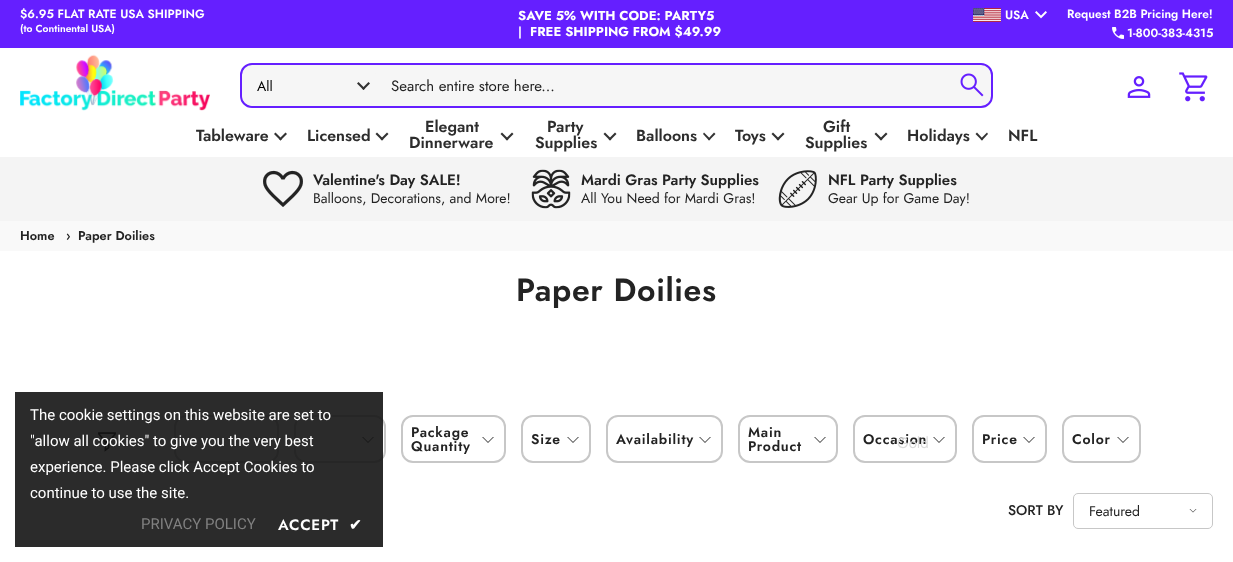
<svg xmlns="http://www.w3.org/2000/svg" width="1233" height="562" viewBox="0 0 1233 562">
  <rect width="100%" height="100%" fill="rgb(255,255,255)"/>
  <rect x="0" y="0" width="1233" height="48" fill="rgb(101,31,255)"/>
  <text x="20" y="18" font-family="Jost" font-size="12" font-weight="600" fill="rgb(255,255,255)">$6.95 FLAT RATE USA SHIPPING</text>
  <text x="20" y="32" font-family="Jost" font-size="10.25" font-weight="600" fill="rgb(255,255,255)">(to Continental USA)</text>
  <text x="518" y="20" font-family="Jost" font-size="13" font-weight="bold" fill="rgb(255,255,255)">SAVE 5% WITH CODE: PARTY5</text>
  <text x="518" y="36" font-family="Jost" font-size="12" font-weight="600" fill="rgb(255,255,255)">|</text>
  <text x="530" y="36" font-family="Jost" font-size="13" font-weight="bold" fill="rgb(255,255,255)">FREE SHIPPING FROM $49.99</text>
  <image x="973" y="8" width="28" height="14" href="pic1.png"/>
  <text x="1005" y="19" font-family="Jost" font-size="12" font-weight="600" fill="rgb(255,255,255)">USA</text>
  <image x="1035" y="11" width="12" height="8" href="pic2.png"/>
  <text x="1067" y="18" font-family="Jost" font-size="12" font-weight="600" fill="rgb(255,255,255)">Request B2B Pricing Here!</text>
  <image x="1112" y="27" width="12" height="12" href="pic3.png"/>
  <text x="1127" y="37" font-family="Jost" font-size="12" font-weight="600" fill="rgb(255,255,255)">1-800-383-4315</text>
  <image x="20" y="90" width="190" height="21" href="pic4.png"/>
  <image x="92" y="60" width="21" height="45" href="pic7.png"/>
  <image x="86" y="54" width="14" height="51" href="pic5.png"/>
  <image x="92" y="66" width="16" height="40" href="pic9.png"/>
  <image x="84" y="64" width="13" height="41" href="pic8.png"/>
  <image x="76" y="60" width="17" height="46" href="pic6.png"/>
  <image x="76" y="76" width="17" height="29" href="pic10.png"/>
  <image x="93" y="74" width="21" height="31" href="pic11.png"/>
  <image x="89" y="79" width="13" height="26" href="pic12.png"/>
  <rect x="241" y="64" width="751" height="43" rx="11" fill="rgb(246,246,246)" stroke="rgb(101,31,255)" stroke-width="2"/>
  <rect x="242" y="66" width="134" height="40" rx="12" fill="rgb(246,246,246)"/>
  <text x="257" y="91" font-family="Jost" font-size="14" fill="rgb(0,0,0)">All</text>
  <path d="M362 88.5L368.5 82L370 83.5L363.5 90Z" fill="rgb(51,51,51)"/>
  <path d="M358.5 82L365 88.5L363.5 90L357 83.5Z" fill="rgb(51,51,51)"/>
  <text x="391" y="91" font-family="Jost" font-size="15" fill="rgb(35,35,35)">Search entire store here...</text>
  <image x="960" y="73" width="24" height="24" href="pic13.png"/>
  <image x="1127" y="76" width="24" height="22" href="pic14.png"/>
  <image x="1179" y="72" width="29" height="30" href="pic15.png"/>
  <text x="196" y="141" font-family="Jost" font-size="16" font-weight="600" fill="rgb(45,45,45)">Tableware</text>
  <path d="M275.5 132.5L282 139L280.5 140.5L274 134Z" fill="rgb(51,51,51)"/>
  <path d="M279 139L285.5 132.5L287 134L280.5 140.5Z" fill="rgb(51,51,51)"/>
  <text x="307" y="141" font-family="Jost" font-size="16" font-weight="600" fill="rgb(45,45,45)">Licensed</text>
  <path d="M377 132.5L383.5 139L382 140.5L375.5 134Z" fill="rgb(51,51,51)"/>
  <path d="M380.5 139L387 132.5L388.5 134L382 140.5Z" fill="rgb(51,51,51)"/>
  <g font-family="Jost" font-size="16" font-weight="600" fill="rgb(45,45,45)">
    <text x="425" y="132">Elegant</text>
    <text x="409" y="148">Dinnerware</text>
  </g>
  <path d="M502 132.5L508.5 139L507 140.5L500.5 134Z" fill="rgb(51,51,51)"/>
  <path d="M505.5 139L512 132.5L513.5 134L507 140.5Z" fill="rgb(51,51,51)"/>
  <g font-family="Jost" font-size="16" font-weight="600" fill="rgb(45,45,45)">
    <text x="547" y="132">Party</text>
    <text x="535" y="148">Supplies</text>
  </g>
  <path d="M605 132.5L611.5 139L610 140.5L603.5 134Z" fill="rgb(51,51,51)"/>
  <path d="M608.5 139L615 132.5L616.5 134L610 140.5Z" fill="rgb(51,51,51)"/>
  <text x="636" y="141" font-family="Jost" font-size="16" font-weight="600" fill="rgb(45,45,45)">Balloons</text>
  <path d="M704 132.5L710.5 139L709 140.5L703 134Z" fill="rgb(51,51,51)"/>
  <path d="M708 139L714 132.5L715.5 134L709 140.5Z" fill="rgb(51,51,51)"/>
  <text x="735" y="141" font-family="Jost" font-size="16" font-weight="600" fill="rgb(45,45,45)">Toys</text>
  <path d="M773 132.5L779.5 139L778 140.5L771.5 134Z" fill="rgb(51,51,51)"/>
  <path d="M776.5 139L783 132.5L784.5 134L778 140.5Z" fill="rgb(51,51,51)"/>
  <g font-family="Jost" font-size="16" font-weight="600" fill="rgb(45,45,45)">
    <text x="823" y="132">Gift</text>
    <text x="805" y="148">Supplies</text>
  </g>
  <path d="M876 132.5L882.5 139L881 140.5L874.5 134Z" fill="rgb(51,51,51)"/>
  <path d="M879.5 139L886 132.5L887.5 134L881 140.5Z" fill="rgb(51,51,51)"/>
  <text x="907" y="141" font-family="Jost" font-size="16" font-weight="600" fill="rgb(45,45,45)">Holidays</text>
  <path d="M977 132.5L983 139L982 140.5L975.5 134Z" fill="rgb(51,51,51)"/>
  <path d="M980.5 139L987 132.5L988 134L982 140.5Z" fill="rgb(51,51,51)"/>
  <text x="1008" y="141" font-family="Jost" font-size="16" font-weight="600" fill="rgb(45,45,45)">NFL</text>
  <rect x="0" y="157" width="1233" height="64" fill="rgb(244,244,244)"/>
  <image x="263" y="170" width="40" height="37" href="pic16.png"/>
  <text x="313" y="185" font-family="Jost" font-size="15" font-weight="600" fill="rgb(35,35,35)">Valentine's Day SALE!</text>
  <text x="313" y="203" font-family="Jost" font-size="14" fill="rgb(35,35,35)">Balloons, Decorations, and More!</text>
  <image x="531" y="169" width="40" height="40" href="pic17.png"/>
  <text x="581" y="185" font-family="Jost" font-size="15" font-weight="600" fill="rgb(35,35,35)">Mardi Gras Party Supplies</text>
  <text x="581" y="203" font-family="Jost" font-size="14" fill="rgb(35,35,35)">All You Need for Mardi Gras!</text>
  <image x="778" y="170" width="39" height="38" href="pic18.png"/>
  <text x="828" y="185" font-family="Jost" font-size="15" font-weight="600" fill="rgb(35,35,35)">NFL Party Supplies</text>
  <text x="828" y="203" font-family="Jost" font-size="14" fill="rgb(35,35,35)">Gear Up for Game Day!</text>
  <rect x="0" y="221" width="1233" height="30" fill="rgb(249,249,249)"/>
  <g font-family="Jost" font-size="12.75" font-weight="600" fill="rgb(35,35,35)">
    <text x="20" y="240">Home</text>
    <text x="66" y="240">›</text>
    <text x="78" y="240">Paper Doilies</text>
  </g>
  <text x="516" y="301" font-family="Jost" font-size="32" font-weight="600" letter-spacing="0.6" fill="rgb(35,35,35)">Paper Doilies</text>
  <image x="98" y="432" width="18" height="20" href="pic19.png"/>
  <rect x="175" y="416" width="103" height="46" rx="11" fill="none" stroke="rgb(199,199,199)" stroke-width="2"/>
  <image x="255" y="437" width="12" height="6" href="pic20.png"/>
  <rect x="295" y="416" width="90" height="46" rx="11" fill="none" stroke="rgb(199,199,199)" stroke-width="2"/>
  <image x="362" y="437" width="12" height="6" href="pic20.png"/>
  <rect x="402" y="416" width="103" height="46" rx="11" fill="none" stroke="rgb(199,199,199)" stroke-width="2"/>
  <g font-family="Jost" font-size="14" font-weight="600" letter-spacing="0.75" fill="rgb(35,35,35)">
    <text>
      <tspan x="411" y="437">Package</tspan>
      <tspan x="411" y="451">Quantity</tspan>
    </text>
  </g>
  <image x="482" y="437" width="12" height="6" href="pic20.png"/>
  <rect x="522" y="416" width="68" height="46" rx="11" fill="none" stroke="rgb(199,199,199)" stroke-width="2"/>
  <text x="531" y="444" font-family="Jost" font-size="14" font-weight="600" letter-spacing="0.75" fill="rgb(35,35,35)">Size</text>
  <image x="567" y="437" width="12" height="6" href="pic20.png"/>
  <rect x="607" y="416" width="115" height="46" rx="11" fill="none" stroke="rgb(199,199,199)" stroke-width="2"/>
  <text x="616" y="444" font-family="Jost" font-size="14" font-weight="600" letter-spacing="0.75" fill="rgb(35,35,35)">Availability</text>
  <image x="699" y="437" width="12" height="6" href="pic20.png"/>
  <rect x="739" y="416" width="98" height="46" rx="11" fill="none" stroke="rgb(199,199,199)" stroke-width="2"/>
  <g font-family="Jost" font-size="14" font-weight="600" letter-spacing="0.75" fill="rgb(35,35,35)">
    <text>
      <tspan x="748" y="437">Main</tspan>
      <tspan x="748" y="451">Product</tspan>
    </text>
  </g>
  <image x="814" y="437" width="12" height="6" href="pic20.png"/>
  <rect x="854" y="416" width="102" height="46" rx="11" fill="none" stroke="rgb(199,199,199)" stroke-width="2"/>
  <text x="863" y="444" font-family="Jost" font-size="14" font-weight="600" letter-spacing="0.75" fill="rgb(35,35,35)">Occasion</text>
  <image x="933" y="437" width="12" height="6" href="pic20.png"/>
  <text x="897" y="448" font-family="Jost" font-size="15" fill="rgb(219,219,219)">Gold</text>
  <rect x="1063" y="416" width="77" height="46" rx="11" fill="none" stroke="rgb(199,199,199)" stroke-width="2"/>
  <text x="1072" y="444" font-family="Jost" font-size="14" font-weight="600" letter-spacing="0.75" fill="rgb(35,35,35)">Color</text>
  <image x="1117" y="437" width="12" height="6" href="pic20.png"/>
  <rect x="973" y="416" width="73" height="46" rx="11" fill="none" stroke="rgb(199,199,199)" stroke-width="2"/>
  <text x="982" y="444" font-family="Jost" font-size="14" font-weight="600" letter-spacing="0.75" fill="rgb(35,35,35)">Price</text>
  <image x="1023" y="437" width="12" height="6" href="pic20.png"/>
  <text x="1008" y="515" font-family="Jost" font-size="14" font-weight="500" fill="rgb(35,35,35)">SORT BY</text>
  <rect x="1073.5" y="493.5" width="139" height="35" rx="4.5" fill="none" stroke="rgb(199,199,199)"/>
  <text x="1089" y="516" font-family="Jost" font-size="14" fill="rgb(35,35,35)">Featured</text>
  <image x="1189" y="509" width="8" height="4" href="pic21.png"/>
  <rect x="15" y="392" width="368" height="155" fill="rgba(20,20,20,0.9)"/>
  <g font-family="Roboto" font-size="15" fill="rgb(255,255,255)">
    <text>
      <tspan x="30" y="420">The cookie settings on this website are set to</tspan>
      <tspan x="30" y="446">"allow all cookies" to give you the very best</tspan>
      <tspan x="30" y="472">experience. Please click Accept Cookies to</tspan>
      <tspan x="30" y="498">continue to use the site.</tspan>
    </text>
  </g>
  <text x="141" y="529" font-family="Roboto" font-size="15" fill="rgb(129,129,129)">PRIVACY POLICY</text>
  <text x="278" y="530" font-family="Jost" font-size="15" font-weight="600" letter-spacing="0.75" fill="rgb(255,255,255)">ACCEPT</text>
  <text x="349" y="530" font-family="DejaVu Sans" font-size="15" font-weight="bold" letter-spacing="0.75" fill="rgb(255,255,255)">✔</text>
</svg>
